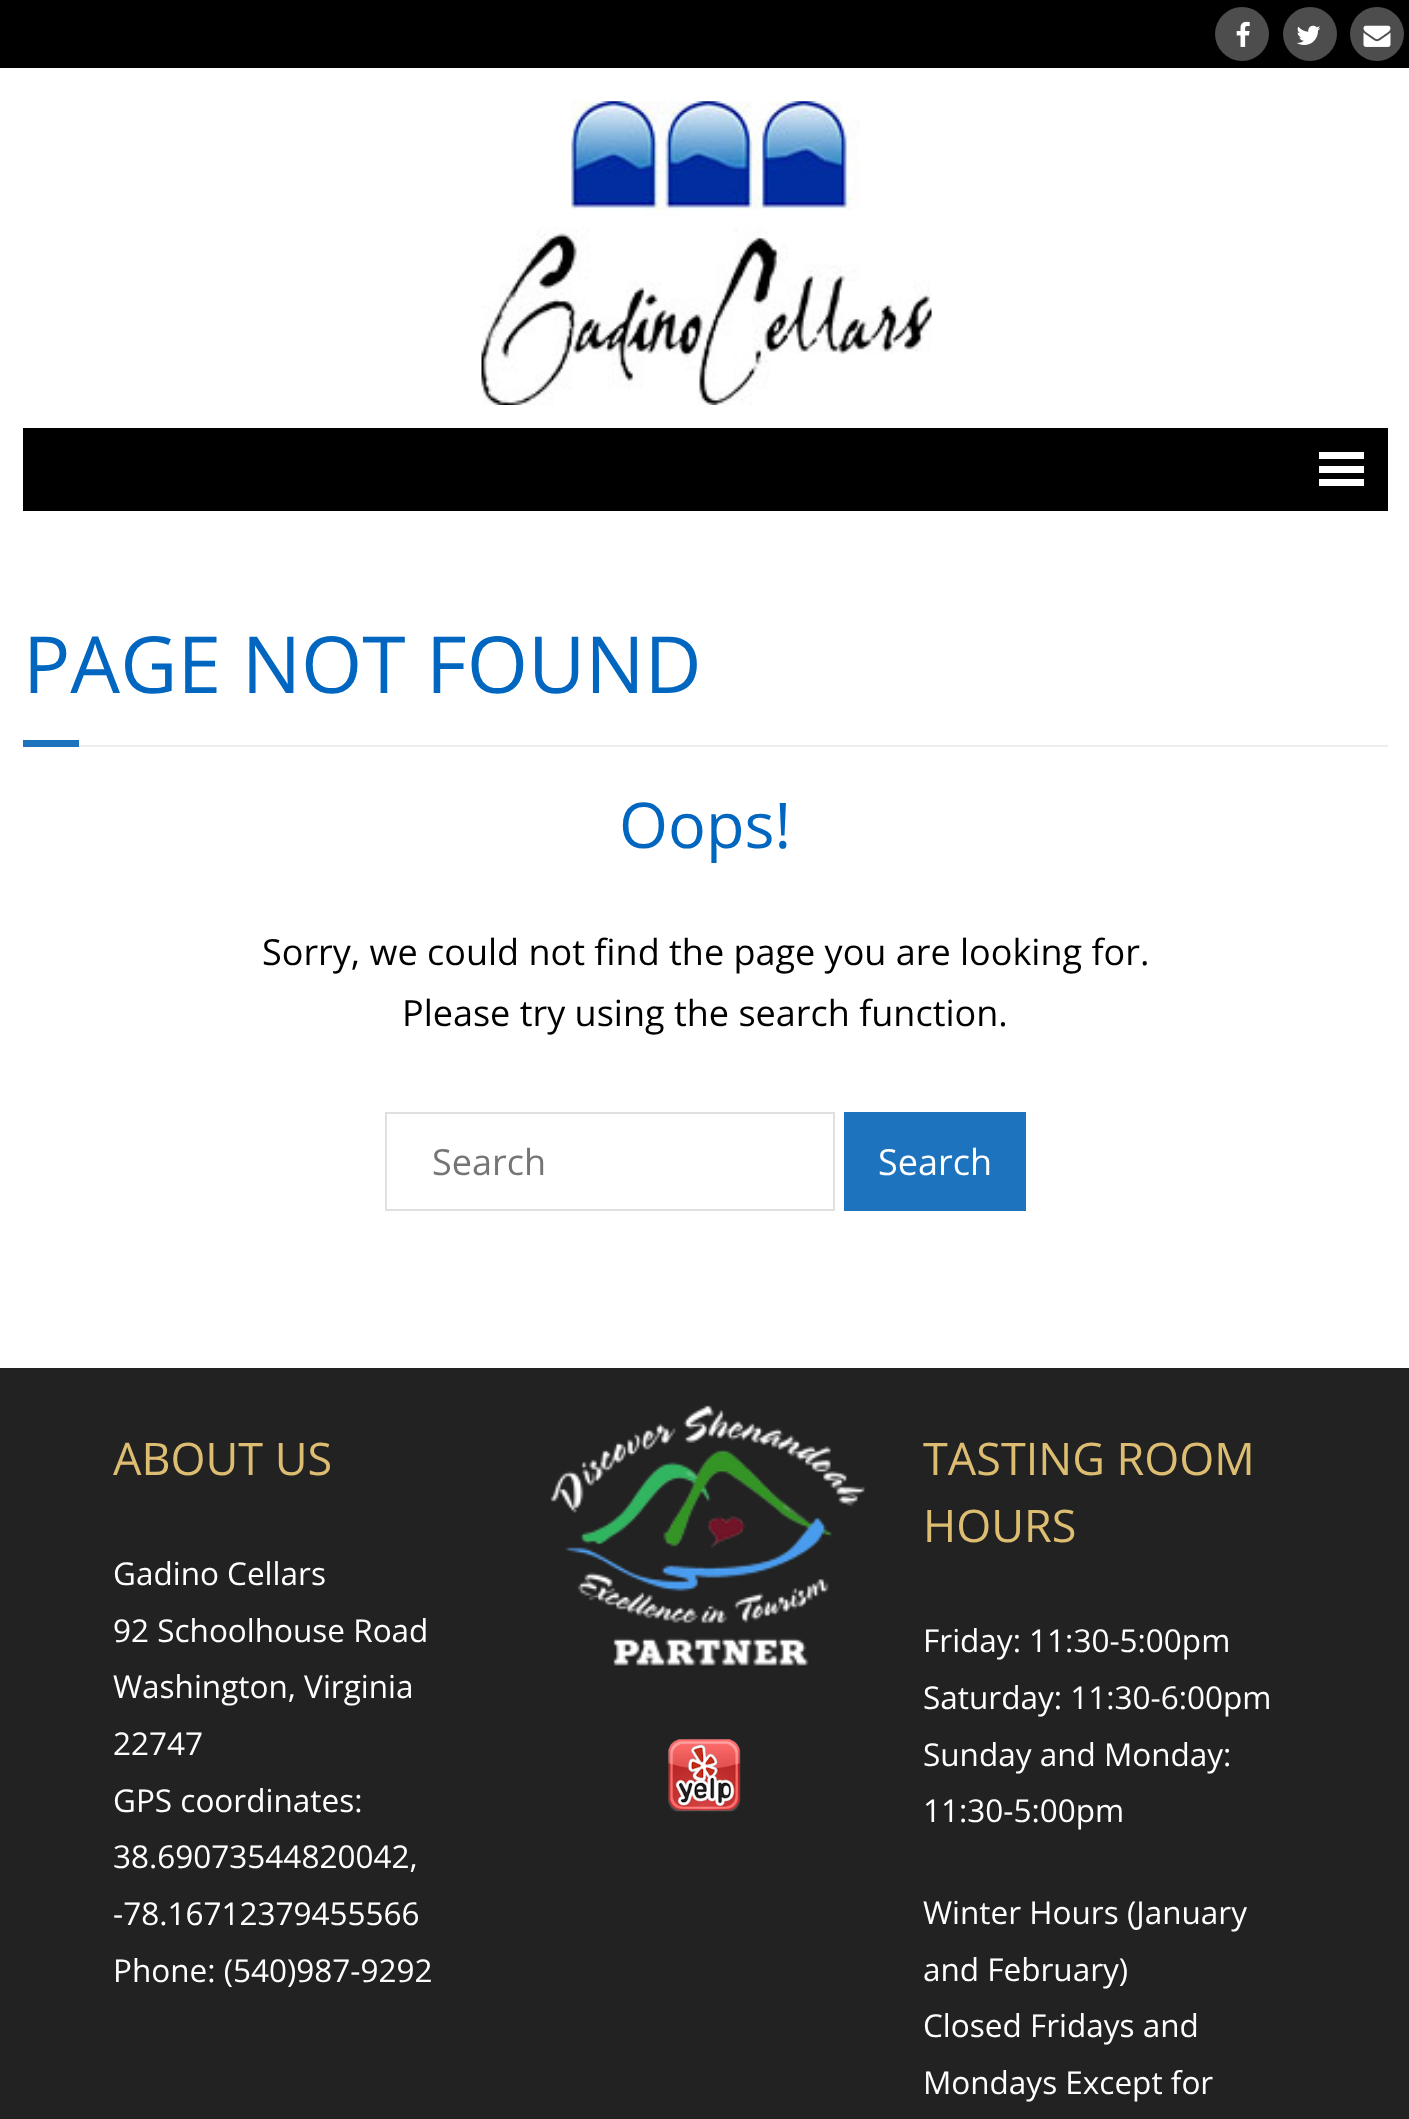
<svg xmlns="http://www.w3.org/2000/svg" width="1409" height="2119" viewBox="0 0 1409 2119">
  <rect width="100%" height="100%" fill="rgb(255,255,255)"/>
  <rect x="0" y="0" width="1409" height="68" fill="rgb(0,0,0)"/>
  <circle cx="1242" cy="34" r="27" fill="rgb(77,77,77)"/>
  <image x="1236" y="21" width="14" height="26" href="pic1.png"/>
  <circle cx="1310" cy="34" r="27" fill="rgb(77,77,77)"/>
  <image x="1296" y="25" width="25" height="20" href="pic2.png"/>
  <circle cx="1377" cy="34" r="27" fill="rgb(77,77,77)"/>
  <image x="1363" y="25" width="28" height="22" href="pic3.png"/>
  <image x="481" y="101" width="451" height="304" href="pic4.png"/>
  <rect x="23" y="428" width="1365" height="83" fill="rgb(0,0,0)"/>
  <rect x="1319" y="452" width="45" height="7" fill="rgb(255,255,255)"/>
  <rect x="1319" y="466" width="45" height="7" fill="rgb(255,255,255)"/>
  <rect x="1319" y="479" width="45" height="7" fill="rgb(255,255,255)"/>
  <text x="23" y="693" font-family="Open Sans" font-size="78.75" fill="rgb(0,102,191)">PAGE NOT FOUND</text>
  <rect x="23" y="740" width="56" height="7" fill="rgb(30,115,190)"/>
  <rect x="79" y="745" width="1309" height="2" fill="rgb(238,238,238)"/>
  <text x="619" y="848" font-family="Open Sans" font-size="63" fill="rgb(0,102,191)">Oops!</text>
  <g font-family="Open Sans" font-size="36" fill="rgb(0,0,0)">
    <text x="262" y="965">Sorry, we could not find the page you are looking for.</text>
    <text x="402" y="1026">Please try using the search function.</text>
  </g>
  <rect x="386" y="1113" width="448" height="97" fill="none" stroke="rgb(224,224,224)" stroke-width="2"/>
  <text x="432" y="1175" font-family="Open Sans" font-size="36" fill="rgb(117,117,117)">Search</text>
  <rect x="844" y="1112" width="182" height="99" fill="rgb(30,115,190)"/>
  <text x="878" y="1175" font-family="Open Sans" font-size="36" fill="rgb(255,255,255)">Search</text>
  <rect x="0" y="1368" width="1409" height="751" fill="rgb(34,34,34)"/>
  <text x="113" y="1475" font-family="Open Sans" font-size="45" fill="rgb(221,189,113)">ABOUT US</text>
  <g font-family="Open Sans" font-size="31.5" fill="rgb(255,255,255)">
    <text>
      <tspan x="113" y="1585">Gadino Cellars</tspan>
      <tspan x="113" y="1642">92 Schoolhouse Road</tspan>
      <tspan x="113" y="1698">Washington, Virginia</tspan>
      <tspan x="113" y="1755">22747</tspan>
      <tspan x="113" y="1812">GPS coordinates:</tspan>
      <tspan x="113" y="1868">38.69073544820042,</tspan>
      <tspan x="113" y="1925">-78.16712379455566</tspan>
      <tspan x="113" y="1982">Phone: (540)987-9292</tspan>
    </text>
  </g>
  <image x="550" y="1405" width="316" height="262" href="pic5.png"/>
  <image x="668" y="1739" width="73" height="73" href="pic6.png"/>
  <g font-family="Open Sans" font-size="45" fill="rgb(221,189,113)">
    <text>
      <tspan x="923" y="1475">TASTING ROOM</tspan>
      <tspan x="923" y="1542">HOURS</tspan>
    </text>
  </g>
  <g font-family="Open Sans" font-size="31.5" fill="rgb(255,255,255)">
    <text>
      <tspan x="923" y="1652">Friday: 11:30-5:00pm</tspan>
      <tspan x="923" y="1709">Saturday: 11:30-6:00pm</tspan>
      <tspan x="923" y="1766">Sunday and Monday:</tspan>
      <tspan x="923" y="1822">11:30-5:00pm</tspan>
    </text>
    <text>
      <tspan x="923" y="1924">Winter Hours (January</tspan>
      <tspan x="923" y="1981">and February)</tspan>
      <tspan x="923" y="2037">Closed Fridays and</tspan>
      <tspan x="923" y="2094">Mondays Except for</tspan>
    </text>
  </g>
</svg>
